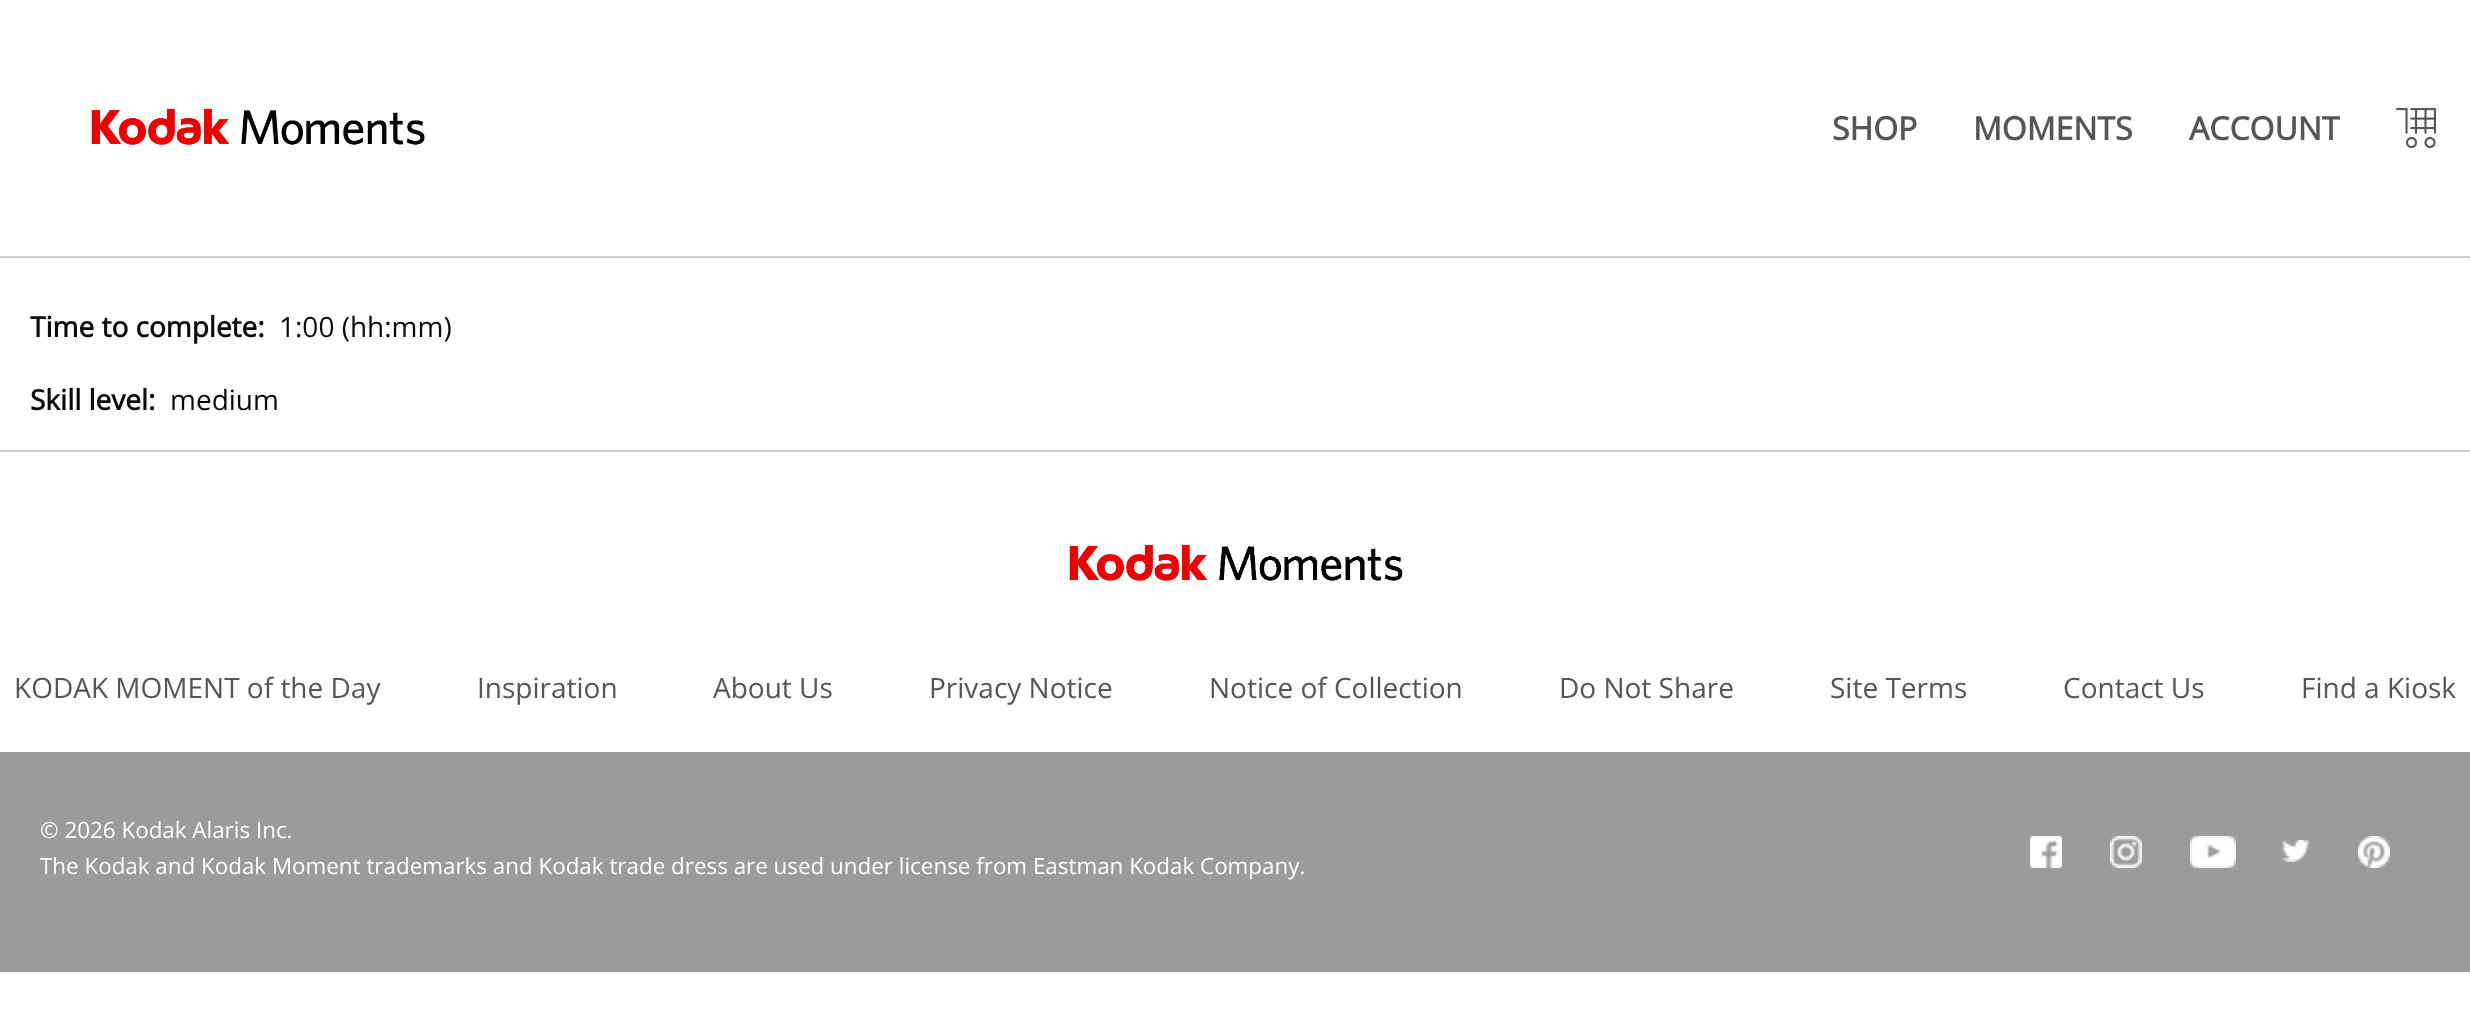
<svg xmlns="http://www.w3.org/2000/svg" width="2470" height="1032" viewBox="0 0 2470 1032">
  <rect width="100%" height="100%" fill="rgb(255,255,255)"/>
  <rect x="0" y="256" width="2470" height="2" fill="rgb(206,206,206)"/>
  <image x="91" y="108" width="334" height="37" href="pic1.png"/>
  <g font-family="Open Sans" font-size="32" font-weight="bold" fill="rgb(85,85,85)">
    <text x="1832" y="140">SHOP</text>
    <text x="1973" y="140">MOMENTS</text>
    <text x="2189" y="140">ACCOUNT</text>
  </g>
  <image x="2396" y="108" width="40" height="40" href="pic2.png"/>
  <text x="30" y="337" font-family="Open Sans" font-size="28" font-weight="bold" fill="rgb(10,10,10)">Time to complete:</text>
  <text x="279" y="337" font-family="Open Sans" font-size="28" fill="rgb(10,10,10)">1:00 (hh:mm)</text>
  <text x="30" y="410" font-family="Open Sans" font-size="28" font-weight="bold" fill="rgb(10,10,10)">Skill level:</text>
  <text x="170" y="410" font-family="Open Sans" font-size="28" fill="rgb(10,10,10)">medium</text>
  <rect x="0" y="450" width="2470" height="2" fill="rgb(204,204,204)"/>
  <image x="1069" y="544" width="334" height="37" href="pic3.png"/>
  <g font-family="Open Sans" font-size="28" fill="rgb(85,85,85)">
    <text x="14" y="698">KODAK MOMENT of the Day</text>
    <text x="477" y="698">Inspiration</text>
    <text x="713" y="698">About Us</text>
    <text x="929" y="698">Privacy Notice</text>
    <text x="1209" y="698">Notice of Collection</text>
    <text x="1559" y="698">Do Not Share</text>
    <text x="1830" y="698">Site Terms</text>
    <text x="2063" y="698">Contact Us</text>
    <text x="2301" y="698">Find a Kiosk</text>
  </g>
  <rect x="0" y="752" width="2470" height="220" fill="rgb(155,155,155)"/>
  <g font-family="Open Sans" font-size="22.4" fill="rgb(255,255,255)">
    <text>
      <tspan x="40" y="838">© 2026 Kodak Alaris Inc.</tspan>
      <tspan x="40" y="874">The Kodak and Kodak Moment trademarks and Kodak trade dress are used under license from Eastman Kodak Company.</tspan>
    </text>
  </g>
  <image x="2030" y="836" width="32" height="32" href="pic4.png"/>
  <image x="2110" y="836" width="32" height="32" href="pic5.png"/>
  <image x="2190" y="836" width="46" height="32" href="pic6.png"/>
  <image x="2282" y="840" width="28" height="22" href="pic7.png"/>
  <image x="2358" y="836" width="32" height="32" href="pic8.png"/>
</svg>
